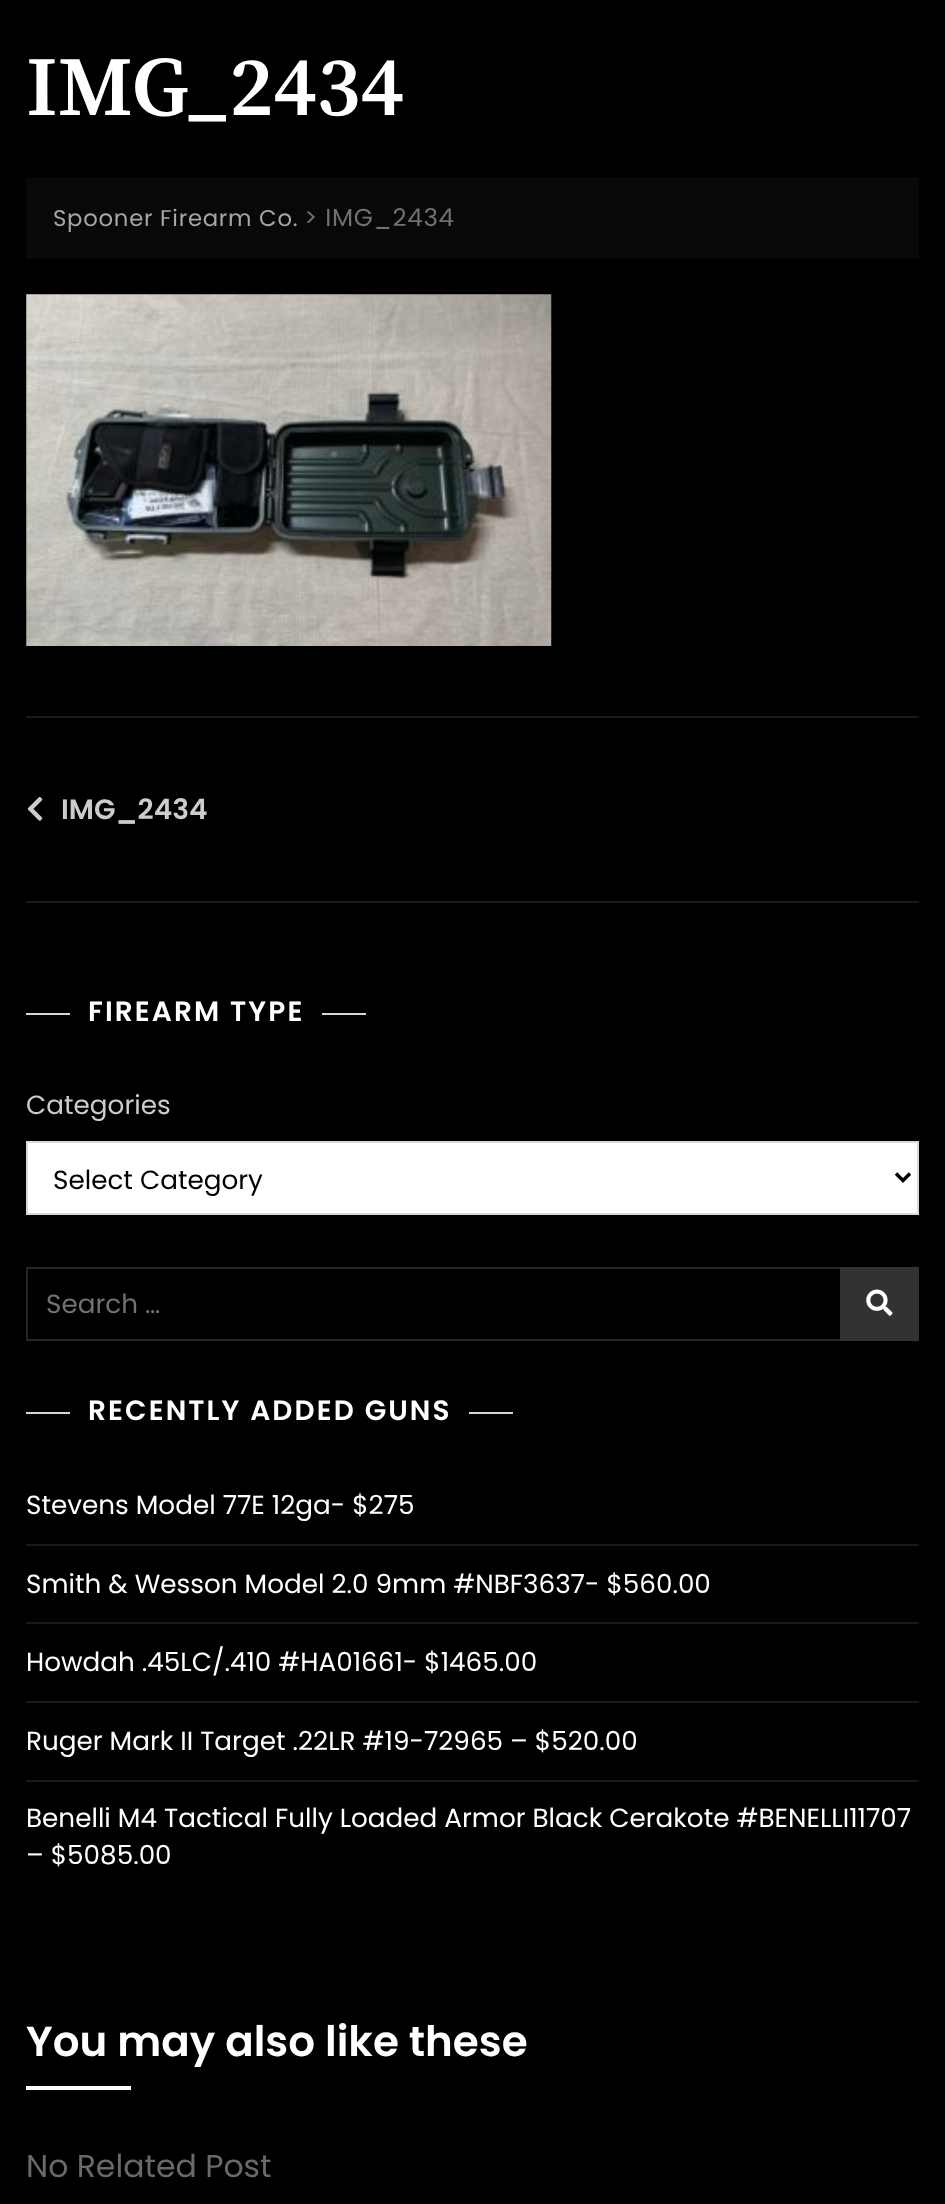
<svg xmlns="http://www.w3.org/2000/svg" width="945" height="2204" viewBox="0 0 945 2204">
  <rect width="100%" height="100%" fill="rgb(0,0,0)"/>
  <text x="26" y="115" font-family="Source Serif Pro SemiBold" font-size="84" font-weight="600" fill="rgb(255,255,255)">IMG_2434</text>
  <rect x="26" y="177" width="893" height="82" fill="rgb(8,8,8)"/>
  <text x="53" y="226" font-family="Poppins" font-size="22.75" letter-spacing="0.75" fill="rgb(166,166,166)">Spooner Firearm Co.</text>
  <text x="304" y="226" font-family="Poppins" font-size="24.5" letter-spacing="0.75" fill="rgb(113,113,113)">&gt; IMG_2434</text>
  <image x="26" y="294" width="526" height="352" href="pic1.png"/>
  <rect x="26" y="716" width="893" height="2" fill="rgb(26,26,26)"/>
  <rect x="26" y="901" width="893" height="2" fill="rgb(26,26,26)"/>
  <image x="27" y="796" width="16" height="25" href="pic2.png"/>
  <text x="61" y="819" font-family="Poppins" font-size="28" font-weight="600" fill="rgb(204,204,204)">IMG_2434</text>
  <rect x="26" y="1013" width="44" height="2" fill="rgb(214,214,214)"/>
  <text x="88" y="1021" font-family="Poppins" font-size="28" font-weight="600" letter-spacing="2.1" fill="rgb(255,255,255)">FIREARM TYPE</text>
  <rect x="322" y="1013" width="44" height="2" fill="rgb(214,214,214)"/>
  <text x="26" y="1114" font-family="Poppins" font-size="26.25" fill="rgb(204,204,204)">Categories</text>
  <rect x="27" y="1142" width="891" height="72" fill="rgb(255,255,255)" stroke="rgb(217,217,217)" stroke-width="2"/>
  <path d="M896 1173.5L903 1180.5L910 1173.5" fill="none" stroke="rgb(0,0,0)" stroke-width="3.5"/>
  <text x="53" y="1189" font-family="Poppins" font-size="26.25" fill="rgb(0,0,0)">Select Category</text>
  <rect x="27" y="1268" width="891" height="72" fill="none" stroke="rgb(38,38,38)" stroke-width="2"/>
  <text x="46" y="1313" font-family="Poppins" font-size="26.25" fill="rgb(113,113,113)">Search …</text>
  <rect x="840" y="1267" width="79" height="74" fill="rgb(50,50,50)"/>
  <image x="866" y="1289" width="27" height="27" href="pic3.png"/>
  <rect x="26" y="1412" width="44" height="2" fill="rgb(214,214,214)"/>
  <text x="88" y="1420" font-family="Poppins" font-size="28" font-weight="600" letter-spacing="2.1" fill="rgb(255,255,255)">RECENTLY ADDED GUNS</text>
  <rect x="469" y="1412" width="44" height="2" fill="rgb(214,214,214)"/>
  <rect x="26" y="1544" width="893" height="2" fill="rgb(26,26,26)"/>
  <text x="26" y="1514" font-family="Poppins" font-size="26.25" fill="rgb(255,255,255)">Stevens Model 77E 12ga- $275</text>
  <rect x="26" y="1622" width="893" height="2" fill="rgb(26,26,26)"/>
  <text x="26" y="1593" font-family="Poppins" font-size="26.25" fill="rgb(255,255,255)">Smith &amp; Wesson Model 2.0 9mm #NBF3637- $560.00</text>
  <rect x="26" y="1701" width="893" height="2" fill="rgb(26,26,26)"/>
  <text x="26" y="1671" font-family="Poppins" font-size="26.25" fill="rgb(255,255,255)">Howdah .45LC/.410 #HA01661- $1465.00</text>
  <rect x="26" y="1780" width="893" height="2" fill="rgb(26,26,26)"/>
  <g font-family="Poppins" font-size="26.25" fill="rgb(255,255,255)">
    <text x="26" y="1750">Ruger Mark II Target .22LR #19-72965 – $520.00</text>
    <text>
      <tspan x="26" y="1827">Benelli M4 Tactical Fully Loaded Armor Black Cerakote #BENELLI11707</tspan>
      <tspan x="26" y="1864">– $5085.00</tspan>
    </text>
  </g>
  <text x="26" y="2056" font-family="Poppins" font-size="42" font-weight="600" fill="rgb(255,255,255)">You may also like these</text>
  <rect x="26" y="2086" width="105" height="4" fill="rgb(255,255,255)"/>
  <text x="26" y="2177" font-family="Poppins" font-size="31.5" fill="rgb(105,105,105)">No Related Post</text>
</svg>
